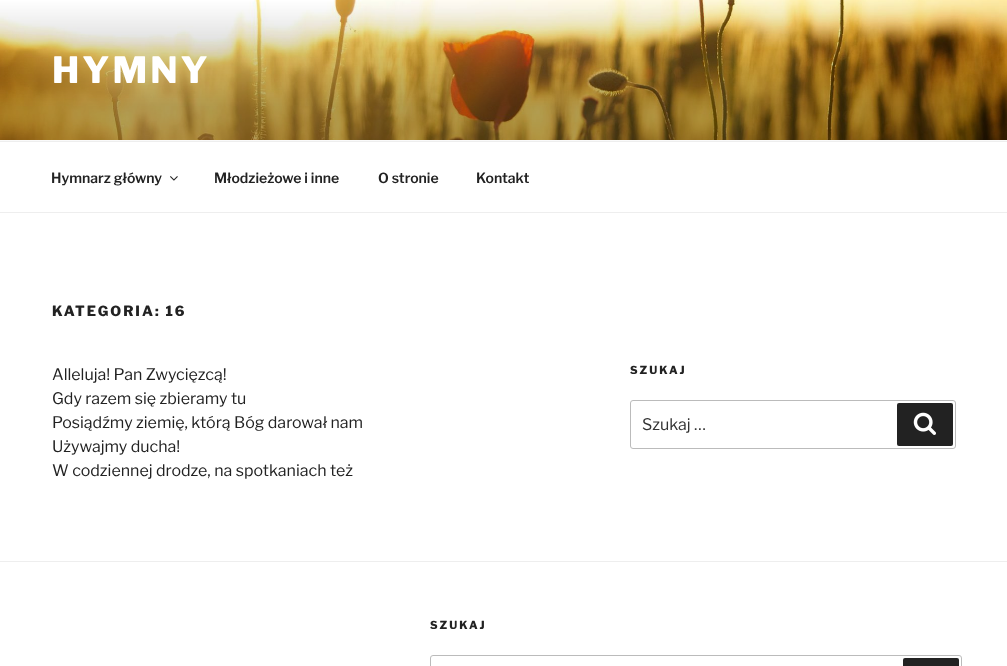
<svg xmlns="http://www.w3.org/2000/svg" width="1007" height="666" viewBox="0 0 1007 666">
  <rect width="100%" height="100%" fill="rgb(255,255,255)"/>
  <rect x="0" y="140" width="1007" height="1" fill="rgb(250,250,250)"/>
  <image x="0" y="0" width="1007" height="140" href="pic1.png"/>
  <text x="52" y="83" font-family="Libre Franklin" font-size="36" font-weight="800" letter-spacing="3" fill="rgb(255,255,255)">HYMNY</text>
  <rect x="0" y="141" width="1007" height="1" fill="rgb(238,238,238)"/>
  <rect x="0" y="212" width="1007" height="1" fill="rgb(238,238,238)"/>
  <text x="51" y="183" font-family="Libre Franklin" font-size="14" font-weight="600" fill="rgb(34,34,34)">Hymnarz główny</text>
  <image x="170" y="176" width="8" height="5" href="pic2.png"/>
  <g font-family="Libre Franklin" font-size="14" font-weight="600" fill="rgb(34,34,34)">
    <text x="214" y="183">Młodzieżowe i inne</text>
    <text x="378" y="183">O stronie</text>
    <text x="476" y="183">Kontakt</text>
  </g>
  <text x="52" y="316" font-family="Libre Franklin" font-size="14" font-weight="800" letter-spacing="2" fill="rgb(34,34,34)">KATEGORIA: 16</text>
  <g font-family="Libre Franklin" font-size="16" fill="rgb(34,34,34)">
    <text>
      <tspan x="52" y="380">Alleluja! Pan Zwycięzcą!</tspan>
      <tspan x="52" y="404">Gdy razem się zbieramy tu</tspan>
      <tspan x="52" y="428">Posiądźmy ziemię, którą Bóg darował nam</tspan>
      <tspan x="52" y="452">Używajmy ducha!</tspan>
      <tspan x="52" y="476">W codziennej drodze, na spotkaniach też</tspan>
    </text>
  </g>
  <text x="630" y="374" font-family="Libre Franklin" font-size="11" font-weight="800" letter-spacing="2" fill="rgb(34,34,34)">SZUKAJ</text>
  <rect x="630.5" y="400.5" width="325" height="48" rx="2.5" fill="none" stroke="rgb(187,187,187)"/>
  <text x="642" y="430" font-family="Libre Franklin" font-size="16" fill="rgb(51,51,51)">Szukaj …</text>
  <rect x="897" y="403" width="56" height="43" rx="2" fill="rgb(34,34,34)"/>
  <image x="913" y="412" width="23" height="23" href="pic3.png"/>
  <rect x="0" y="561" width="1007" height="1" fill="rgb(238,238,238)"/>
  <text x="430" y="629" font-family="Libre Franklin" font-size="11" font-weight="800" letter-spacing="2" fill="rgb(34,34,34)">SZUKAJ</text>
  <rect x="430.5" y="655.5" width="531" height="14" rx="2.5" fill="none" stroke="rgb(187,187,187)"/>
  <rect x="903" y="658" width="56" height="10" rx="2" fill="rgb(34,34,34)"/>
</svg>
